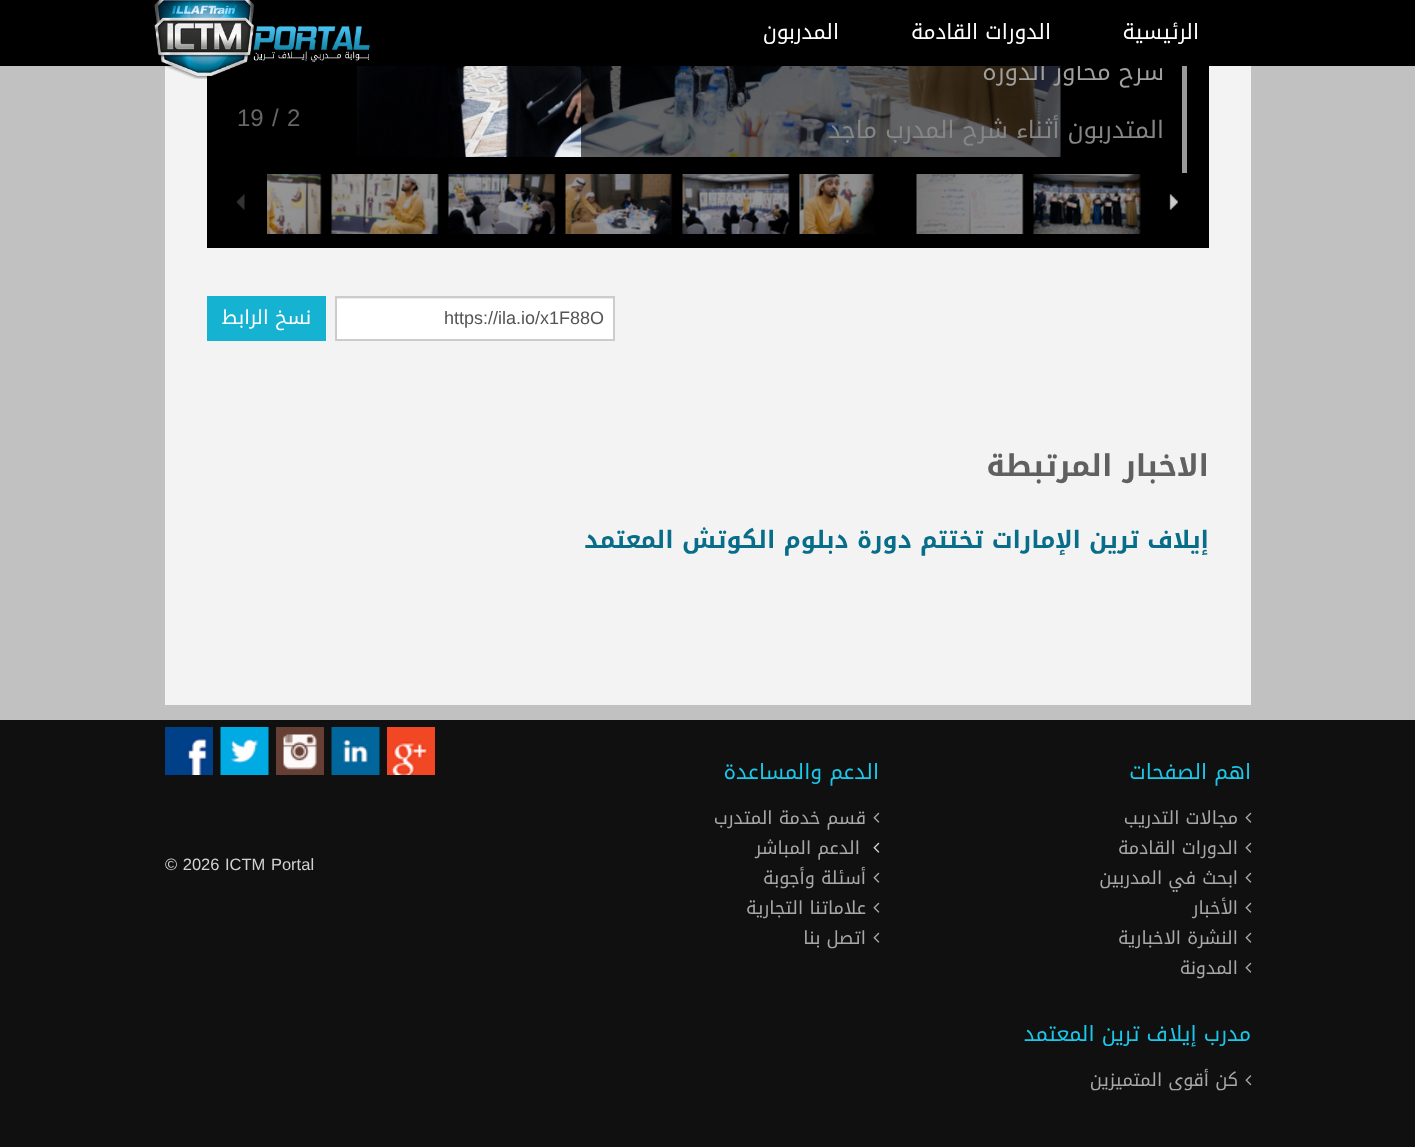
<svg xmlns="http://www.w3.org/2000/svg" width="1415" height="1147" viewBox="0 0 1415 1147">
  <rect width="100%" height="100%" fill="rgb(193,193,193)"/>
  <rect x="165" y="66" width="1086" height="639" fill="rgb(243,243,243)"/>
  <rect x="207" y="66" width="1002" height="182" fill="rgb(0,0,0)"/>
  <image x="357" y="66" width="704" height="91" href="pic2.png"/>
  <rect x="581" y="66" width="480" height="91" fill="rgba(0,0,0,0.6)"/>
  <text x="1164" y="80" font-family="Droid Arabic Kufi" font-size="24" direction="rtl" fill="rgb(160,159,158)">شرح محاور الدورة</text>
  <rect x="0" y="0" width="1415" height="66" fill="rgb(0,0,0)"/>
  <g font-family="Droid Arabic Kufi" font-size="21" direction="rtl" fill="rgb(255,255,255)">
    <text x="1199" y="39">الرئيسية</text>
    <text x="1051" y="39">الدورات القادمة</text>
    <text x="839" y="39">المدربون</text>
  </g>
  <image x="154" y="0" width="216" height="79" href="pic1.png"/>
  <rect x="1182" y="66" width="5" height="107" fill="rgb(153,153,153)"/>
  <text x="1164" y="138" font-family="Droid Arabic Kufi" font-size="24" direction="rtl" fill="rgb(134,134,134)">المتدربون أثناء شرح المدرب ماجد</text>
  <g font-family="Liberation Sans" font-size="24" fill="rgb(102,102,102)">
    <text x="287" y="126">2</text>
    <text x="272" y="126">/</text>
    <text x="237" y="126">19</text>
  </g>
  <image x="1169" y="194" width="9" height="16" href="pic3.png"/>
  <image x="1033" y="174" width="108" height="60" href="pic4.png"/>
  <image x="916" y="174" width="108" height="60" href="pic5.png"/>
  <image x="799" y="174" width="76" height="60" href="pic6.png"/>
  <image x="682" y="174" width="108" height="60" href="pic7.png"/>
  <image x="565" y="174" width="108" height="60" href="pic8.png"/>
  <image x="448" y="174" width="108" height="60" href="pic9.png"/>
  <image x="331" y="174" width="108" height="60" href="pic10.png"/>
  <image x="267" y="174" width="55" height="60" href="pic11.png"/>
  <image x="236" y="194" width="9" height="16" href="pic12.png"/>
  <rect x="337" y="299" width="276" height="40" fill="rgb(255,255,255)"/>
  <rect x="336" y="298" width="278" height="1" fill="rgb(236,236,236)"/>
  <rect x="336" y="297" width="278" height="43" fill="none" stroke="rgb(204,204,204)" stroke-width="2"/>
  <text x="444" y="324" font-family="Liberation Sans" font-size="18" fill="rgb(85,85,85)">https://ila.io/x1F88O</text>
  <rect x="207" y="296" width="119" height="45" fill="rgb(22,178,210)"/>
  <text x="311" y="324" font-family="Droid Arabic Kufi" font-size="19.5" direction="rtl" fill="rgb(255,255,255)">نسخ الرابط</text>
  <text x="1209" y="476" font-family="Droid Arabic Kufi" font-size="30" font-weight="bold" direction="rtl" fill="rgb(96,96,96)">الاخبار المرتبطة</text>
  <text x="1209" y="548" font-family="Droid Arabic Kufi" font-size="24" font-weight="bold" direction="rtl" fill="rgb(7,109,137)">إيلاف ترين الإمارات تختتم دورة دبلوم الكوتش المعتمد</text>
  <rect x="0" y="720" width="1415" height="427" fill="rgb(16,16,16)"/>
  <text x="1251" y="779" font-family="Droid Arabic Kufi" font-size="21" direction="rtl" fill="rgb(27,200,234)">اهم الصفحات</text>
  <image x="1245" y="812" width="7" height="11" href="pic13.png"/>
  <text x="1238" y="824" font-family="Droid Arabic Kufi" font-size="18" direction="rtl" fill="rgb(168,168,168)">مجالات التدريب</text>
  <image x="1245" y="842" width="7" height="11" href="pic13.png"/>
  <text x="1238" y="854" font-family="Droid Arabic Kufi" font-size="18" direction="rtl" fill="rgb(168,168,168)">الدورات القادمة</text>
  <image x="1245" y="872" width="7" height="11" href="pic13.png"/>
  <text x="1238" y="884" font-family="Droid Arabic Kufi" font-size="18" direction="rtl" fill="rgb(168,168,168)">ابحث في المدربين</text>
  <image x="1245" y="902" width="7" height="11" href="pic13.png"/>
  <text x="1238" y="914" font-family="Droid Arabic Kufi" font-size="18" direction="rtl" fill="rgb(168,168,168)">الأخبار</text>
  <image x="1245" y="932" width="7" height="11" href="pic13.png"/>
  <text x="1238" y="944" font-family="Droid Arabic Kufi" font-size="18" direction="rtl" fill="rgb(168,168,168)">النشرة الاخبارية</text>
  <image x="1245" y="962" width="7" height="11" href="pic13.png"/>
  <text x="1238" y="974" font-family="Droid Arabic Kufi" font-size="18" direction="rtl" fill="rgb(168,168,168)">المدونة</text>
  <text x="1251" y="1041" font-family="Droid Arabic Kufi" font-size="21" direction="rtl" fill="rgb(27,200,234)">مدرب إيلاف ترين المعتمد</text>
  <image x="1245" y="1075" width="7" height="11" href="pic14.png"/>
  <text x="1238" y="1086" font-family="Droid Arabic Kufi" font-size="18" direction="rtl" fill="rgb(168,168,168)">كن أقوى المتميزين</text>
  <text x="879" y="779" font-family="Droid Arabic Kufi" font-size="21" direction="rtl" fill="rgb(27,200,234)">الدعم والمساعدة</text>
  <image x="873" y="812" width="7" height="11" href="pic13.png"/>
  <text x="866" y="824" font-family="Droid Arabic Kufi" font-size="18" direction="rtl" fill="rgb(168,168,168)">قسم خدمة المتدرب</text>
  <image x="873" y="842" width="7" height="11" href="pic15.png"/>
  <text x="860" y="854" font-family="Droid Arabic Kufi" font-size="18" direction="rtl" fill="rgb(168,168,168)">الدعم المباشر</text>
  <image x="873" y="872" width="7" height="11" href="pic13.png"/>
  <text x="866" y="884" font-family="Droid Arabic Kufi" font-size="18" direction="rtl" fill="rgb(168,168,168)">أسئلة وأجوبة</text>
  <image x="873" y="902" width="7" height="11" href="pic13.png"/>
  <text x="866" y="914" font-family="Droid Arabic Kufi" font-size="18" direction="rtl" fill="rgb(168,168,168)">علاماتنا التجارية</text>
  <image x="873" y="932" width="7" height="11" href="pic13.png"/>
  <text x="866" y="944" font-family="Droid Arabic Kufi" font-size="18" direction="rtl" fill="rgb(168,168,168)">اتصل بنا</text>
  <image x="387" y="727" width="48" height="48" href="pic16.png"/>
  <image x="331" y="727" width="49" height="48" href="pic17.png"/>
  <image x="276" y="727" width="48" height="48" href="pic18.png"/>
  <image x="220" y="727" width="49" height="48" href="pic19.png"/>
  <image x="165" y="727" width="48" height="48" href="pic20.png"/>
  <text x="165" y="870" word-spacing="1" font-family="Liberation Sans" font-size="16.5" fill="rgb(210,210,210)">© 2026 ICTM Portal</text>
</svg>
